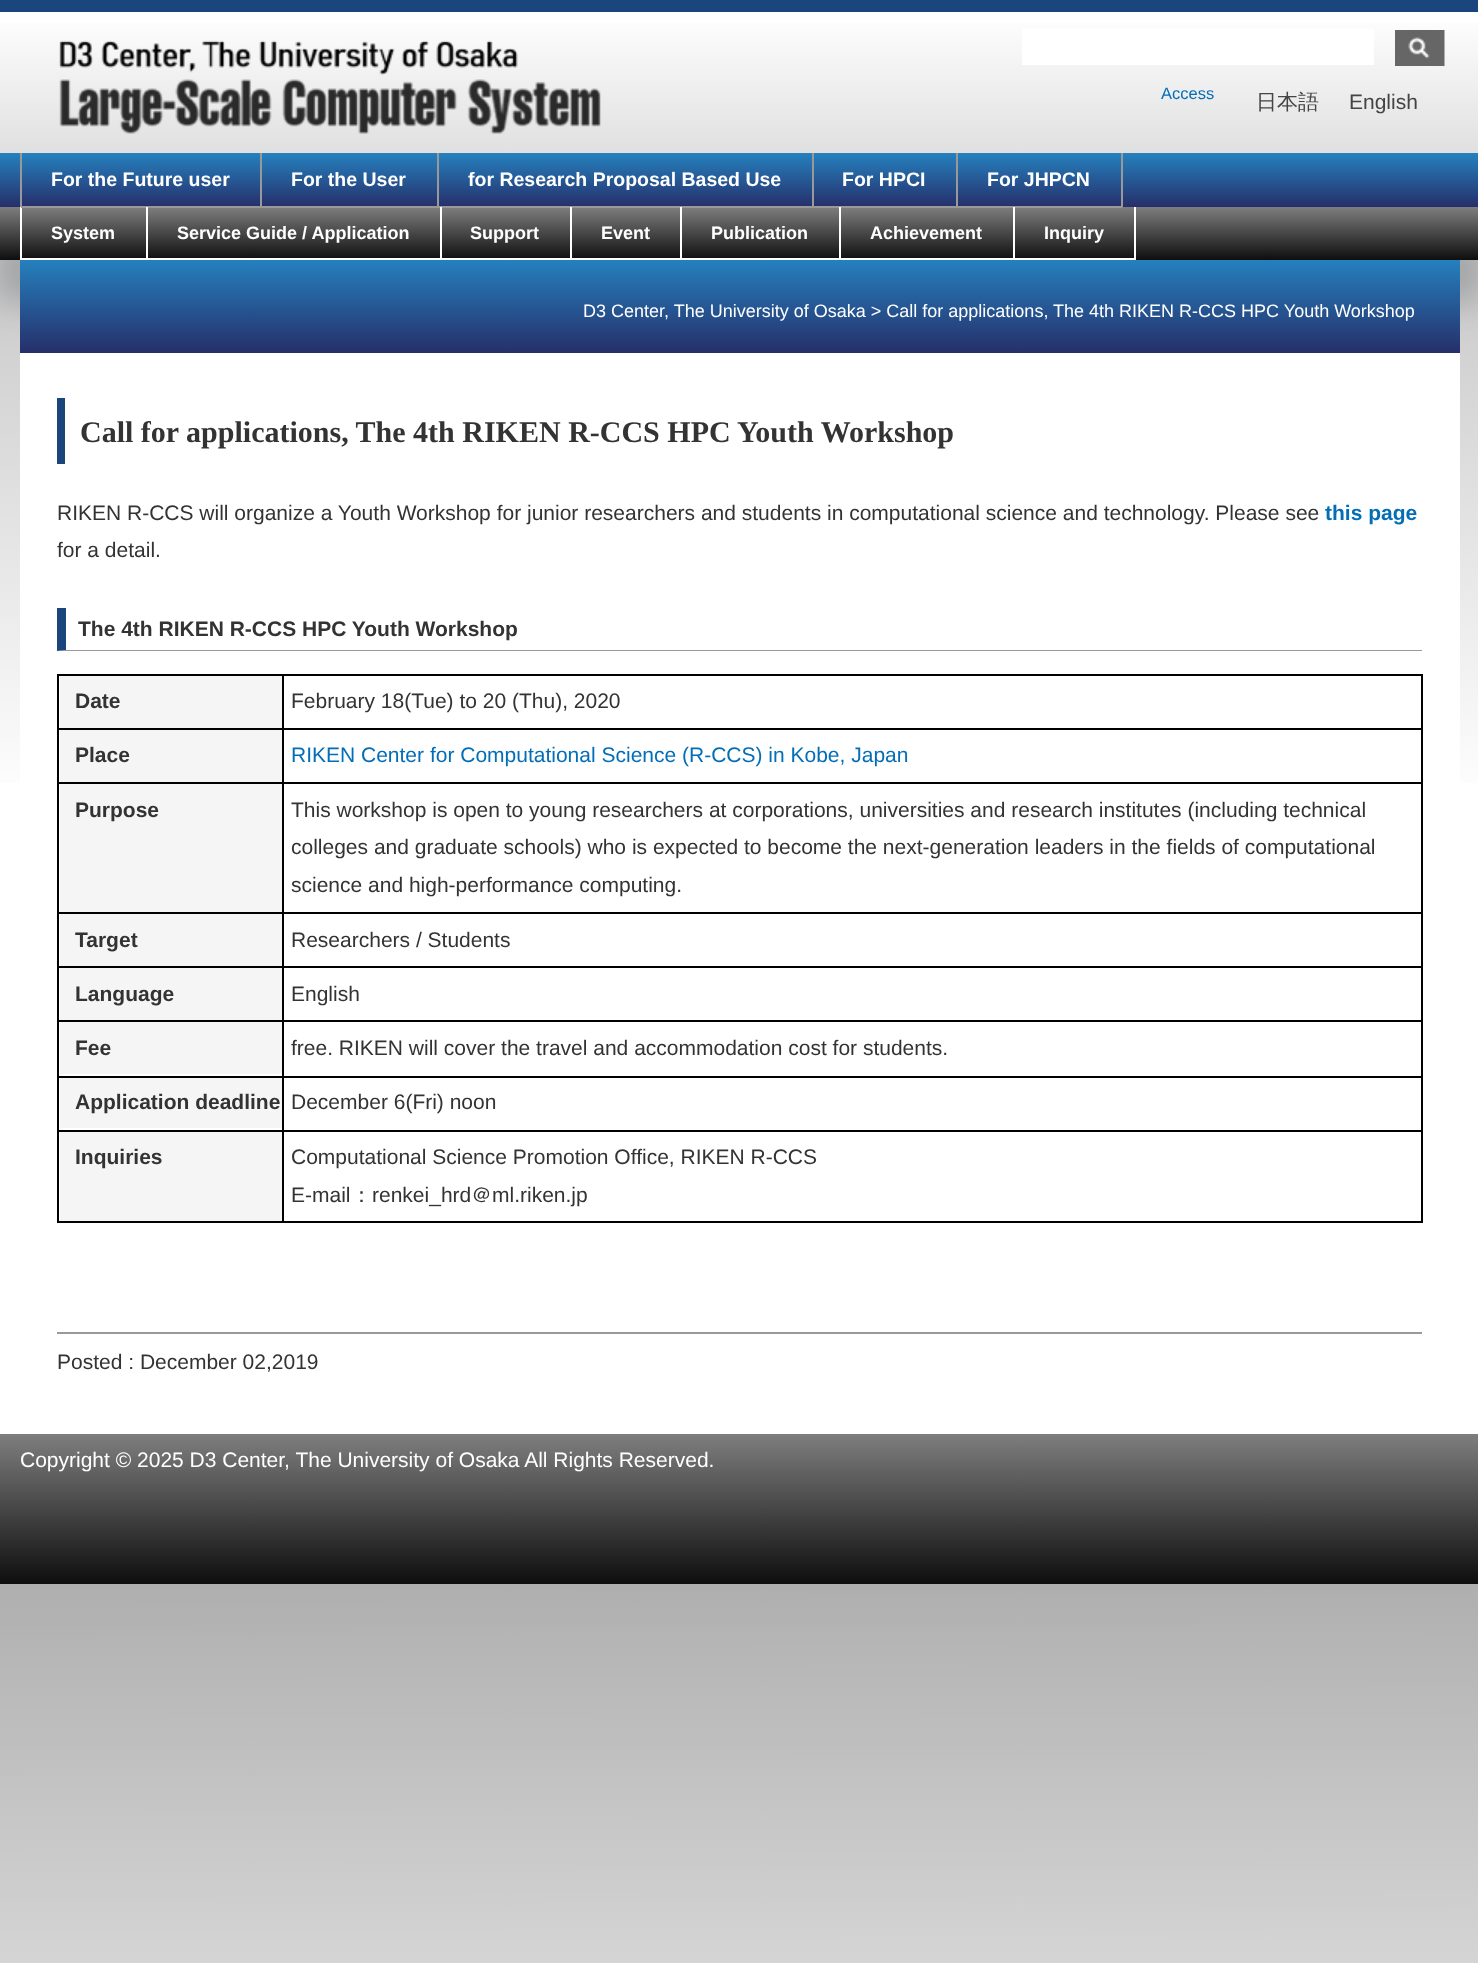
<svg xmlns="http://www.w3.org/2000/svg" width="1478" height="1963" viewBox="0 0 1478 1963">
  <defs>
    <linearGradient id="g1" gradientUnits="userSpaceOnUse" x1="739" y1="0" x2="740" y2="1584"><stop offset="0" stop-color="rgb(175,175,175)"/><stop offset="0.51" stop-color="rgb(255,255,255)"/><stop offset="0.99" stop-color="rgb(255,255,255)"/></linearGradient>
    <linearGradient id="g2" gradientUnits="userSpaceOnUse" x1="739" y1="1584" x2="740" y2="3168"><stop offset="0" stop-color="rgb(175,175,175)"/><stop offset="0.51" stop-color="rgb(255,255,255)"/><stop offset="0.99" stop-color="rgb(255,255,255)"/></linearGradient>
    <linearGradient id="g3" gradientUnits="userSpaceOnUse" x1="740" y1="12" x2="740" y2="153"><stop offset="0" stop-color="rgb(255,255,255)"/><stop offset="1" stop-color="rgb(224,224,224)"/></linearGradient>
    <linearGradient id="g4" gradientUnits="userSpaceOnUse" x1="740" y1="153" x2="740" y2="207"><stop offset="0" stop-color="rgb(37,129,191)"/><stop offset="1" stop-color="rgb(38,47,106)"/></linearGradient>
    <linearGradient id="g5" gradientUnits="userSpaceOnUse" x1="740" y1="207" x2="740" y2="260"><stop offset="0" stop-color="rgb(125,126,125)"/><stop offset="1" stop-color="rgb(14,14,14)"/></linearGradient>
    <linearGradient id="g6" gradientUnits="userSpaceOnUse" x1="740" y1="259" x2="740" y2="353"><stop offset="0" stop-color="rgb(37,129,191)"/><stop offset="1" stop-color="rgb(38,47,106)"/></linearGradient>
    <linearGradient id="g7" gradientUnits="userSpaceOnUse" x1="740" y1="1434" x2="740" y2="1584"><stop offset="0" stop-color="rgb(125,126,125)"/><stop offset="1" stop-color="rgb(14,14,14)"/></linearGradient>
  </defs>
  <rect width="100%" height="100%" fill="rgb(255,255,255)"/>
  <rect x="0" y="260" width="1478" height="523" fill="url(#g1)"/>
  <rect x="0" y="1584" width="1478" height="379" fill="url(#g2)"/>
  <rect x="0" y="23" width="1478" height="130" fill="url(#g3)"/>
  <rect x="0" y="0" width="1478" height="12" fill="rgb(26,70,125)"/>
  <image x="59" y="40" width="542" height="94" href="pic1.png"/>
  <rect x="1022" y="29" width="352" height="36" fill="rgb(255,255,255)"/>
  <image x="1395" y="30" width="50" height="36" href="pic2.png"/>
  <text x="1161" y="99" font-family="Liberation Sans" font-size="16.5" fill="rgb(3,110,184)">Access</text>
  <text x="1256" y="109" font-family="WenQuanYi Zen Hei" font-size="21" font-weight="500" fill="rgb(68,68,68)">日本語</text>
  <text x="1349" y="109" font-family="Liberation Sans" font-size="21" fill="rgb(68,68,68)">English</text>
  <rect x="0" y="153" width="1478" height="54" fill="url(#g4)"/>
  <rect x="20" y="153" width="2" height="54" fill="rgb(153,153,153)"/>
  <rect x="-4" y="242" width="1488" height="61" fill="rgba(86,89,94,0.33)" filter="blur(16.5px)"/>
  <rect x="260" y="153" width="2" height="54" fill="rgb(153,153,153)"/>
  <rect x="0" y="207" width="1478" height="53" fill="url(#g5)"/>
  <rect x="20" y="207" width="2" height="53" fill="rgb(255,255,255)"/>
  <rect x="21" y="206" width="240" height="2" fill="rgb(153,153,153)"/>
  <text x="51" y="186" font-family="Liberation Sans" font-size="19.5" font-weight="bold" fill="rgb(255,255,255)">For the Future user</text>
  <rect x="437" y="153" width="2" height="54" fill="rgb(153,153,153)"/>
  <rect x="261" y="206" width="177" height="2" fill="rgb(153,153,153)"/>
  <text x="291" y="186" font-family="Liberation Sans" font-size="19.5" font-weight="bold" fill="rgb(255,255,255)">For the User</text>
  <rect x="812" y="153" width="2" height="54" fill="rgb(153,153,153)"/>
  <rect x="438" y="206" width="375" height="2" fill="rgb(153,153,153)"/>
  <text x="468" y="186" font-family="Liberation Sans" font-size="19.5" font-weight="bold" fill="rgb(255,255,255)">for Research Proposal Based Use</text>
  <rect x="956" y="153" width="2" height="54" fill="rgb(153,153,153)"/>
  <rect x="813" y="206" width="144" height="2" fill="rgb(153,153,153)"/>
  <text x="842" y="186" font-family="Liberation Sans" font-size="19.5" font-weight="bold" fill="rgb(255,255,255)">For HPCI</text>
  <rect x="1121" y="153" width="2" height="54" fill="rgb(153,153,153)"/>
  <rect x="957" y="206" width="165" height="2" fill="rgb(153,153,153)"/>
  <text x="987" y="186" font-family="Liberation Sans" font-size="19.5" font-weight="bold" fill="rgb(255,255,255)">For JHPCN</text>
  <rect x="146" y="207" width="2" height="53" fill="rgb(255,255,255)"/>
  <rect x="21" y="258" width="126" height="2" fill="rgb(255,255,255)"/>
  <text x="51" y="239" font-family="Liberation Sans" font-size="18" font-weight="bold" fill="rgb(255,255,255)">System</text>
  <rect x="440" y="207" width="2" height="53" fill="rgb(255,255,255)"/>
  <rect x="147" y="258" width="294" height="2" fill="rgb(255,255,255)"/>
  <text x="177" y="239" font-family="Liberation Sans" font-size="18" font-weight="bold" fill="rgb(255,255,255)">Service Guide / Application</text>
  <rect x="570" y="207" width="2" height="53" fill="rgb(255,255,255)"/>
  <rect x="441" y="258" width="131" height="2" fill="rgb(255,255,255)"/>
  <text x="470" y="239" font-family="Liberation Sans" font-size="18" font-weight="bold" fill="rgb(255,255,255)">Support</text>
  <rect x="680" y="207" width="2" height="53" fill="rgb(255,255,255)"/>
  <rect x="572" y="258" width="109" height="2" fill="rgb(255,255,255)"/>
  <text x="601" y="239" font-family="Liberation Sans" font-size="18" font-weight="bold" fill="rgb(255,255,255)">Event</text>
  <rect x="839" y="207" width="2" height="53" fill="rgb(255,255,255)"/>
  <rect x="681" y="258" width="159" height="2" fill="rgb(255,255,255)"/>
  <text x="711" y="239" font-family="Liberation Sans" font-size="18" font-weight="bold" fill="rgb(255,255,255)">Publication</text>
  <rect x="1013" y="207" width="2" height="53" fill="rgb(255,255,255)"/>
  <rect x="840" y="258" width="174" height="2" fill="rgb(255,255,255)"/>
  <text x="870" y="239" font-family="Liberation Sans" font-size="18" font-weight="bold" fill="rgb(255,255,255)">Achievement</text>
  <rect x="1134" y="207" width="2" height="53" fill="rgb(255,255,255)"/>
  <rect x="1014" y="258" width="122" height="2" fill="rgb(255,255,255)"/>
  <text x="1044" y="239" font-family="Liberation Sans" font-size="18" font-weight="bold" fill="rgb(255,255,255)">Inquiry</text>
  <rect x="20" y="260" width="1440" height="93" fill="url(#g6)"/>
  <text x="583" y="317" font-family="Liberation Sans" font-size="18" fill="rgb(255,255,255)">D3 Center, The University of Osaka &gt; Call for applications, The 4th RIKEN R-CCS HPC Youth Workshop</text>
  <rect x="20" y="353" width="1440" height="430" fill="rgb(255,255,255)"/>
  <rect x="57" y="398" width="8" height="66" fill="rgb(26,70,125)"/>
  <text x="80" y="442" font-family="Liberation Serif" font-size="30" font-weight="bold" fill="rgb(51,51,51)">Call for applications, The 4th RIKEN R-CCS HPC Youth Workshop</text>
  <text x="57" y="520" font-family="Liberation Sans" font-size="21" fill="rgb(51,51,51)">RIKEN R-CCS will organize a Youth Workshop for junior researchers and students in computational science and technology. Please see</text>
  <text x="1325" y="520" font-family="Liberation Sans" font-size="21" font-weight="bold" fill="rgb(3,110,184)">this page</text>
  <text x="57" y="557" font-family="Liberation Sans" font-size="21" fill="rgb(51,51,51)">for a detail.</text>
  <path d="M1422 651H57L66 650H1422Z" fill="rgb(153,153,153)"/>
  <path d="M57 651V608H66V650Z" fill="rgb(26,70,125)"/>
  <text x="78" y="636" font-family="Liberation Sans" font-size="21" font-weight="bold" fill="rgb(51,51,51)">The 4th RIKEN R-CCS HPC Youth Workshop</text>
  <rect x="57" y="674" width="1365" height="2" fill="rgb(0,0,0)"/>
  <rect x="1421" y="674" width="2" height="549" fill="rgb(0,0,0)"/>
  <rect x="57" y="1221" width="1365" height="2" fill="rgb(0,0,0)"/>
  <rect x="57" y="674" width="2" height="549" fill="rgb(0,0,0)"/>
  <rect x="60" y="676" width="222" height="52" fill="rgb(245,245,245)"/>
  <rect x="282" y="1130" width="2" height="93" fill="rgb(0,0,0)"/>
  <rect x="282" y="1130" width="1140" height="2" fill="rgb(0,0,0)"/>
  <rect x="282" y="1076" width="2" height="55" fill="rgb(0,0,0)"/>
  <rect x="282" y="1076" width="1140" height="2" fill="rgb(0,0,0)"/>
  <rect x="282" y="1020" width="2" height="57" fill="rgb(0,0,0)"/>
  <rect x="282" y="1020" width="1140" height="2" fill="rgb(0,0,0)"/>
  <rect x="282" y="966" width="2" height="56" fill="rgb(0,0,0)"/>
  <rect x="282" y="966" width="1140" height="2" fill="rgb(0,0,0)"/>
  <rect x="282" y="912" width="2" height="56" fill="rgb(0,0,0)"/>
  <rect x="282" y="912" width="1140" height="2" fill="rgb(0,0,0)"/>
  <rect x="282" y="782" width="2" height="132" fill="rgb(0,0,0)"/>
  <rect x="282" y="782" width="1140" height="2" fill="rgb(0,0,0)"/>
  <rect x="282" y="728" width="2" height="55" fill="rgb(0,0,0)"/>
  <rect x="282" y="728" width="1140" height="2" fill="rgb(0,0,0)"/>
  <rect x="282" y="674" width="2" height="55" fill="rgb(0,0,0)"/>
  <rect x="57" y="728" width="227" height="2" fill="rgb(0,0,0)"/>
  <text x="75" y="708" font-family="Liberation Sans" font-size="21" font-weight="bold" fill="rgb(51,51,51)">Date</text>
  <text x="291" y="708" font-family="Liberation Sans" font-size="21" fill="rgb(51,51,51)">February 18(Tue) to 20 (Thu), 2020</text>
  <rect x="60" y="730" width="222" height="52" fill="rgb(245,245,245)"/>
  <rect x="57" y="782" width="227" height="2" fill="rgb(0,0,0)"/>
  <text x="75" y="762" font-family="Liberation Sans" font-size="21" font-weight="bold" fill="rgb(51,51,51)">Place</text>
  <text x="291" y="762" font-family="Liberation Sans" font-size="21" fill="rgb(3,110,184)">RIKEN Center for Computational Science (R-CCS) in Kobe, Japan</text>
  <rect x="60" y="784" width="222" height="128" fill="rgb(245,245,245)"/>
  <rect x="57" y="912" width="227" height="2" fill="rgb(0,0,0)"/>
  <text x="75" y="817" font-family="Liberation Sans" font-size="21" font-weight="bold" fill="rgb(51,51,51)">Purpose</text>
  <g font-family="Liberation Sans" font-size="21" fill="rgb(51,51,51)">
    <text>
      <tspan x="291" y="817">This workshop is open to young researchers at corporations, universities and research institutes (including technical</tspan>
      <tspan x="291" y="854">colleges and graduate schools) who is expected to become the next-generation leaders in the fields of computational</tspan>
      <tspan x="291" y="892">science and high-performance computing.</tspan>
    </text>
  </g>
  <rect x="60" y="914" width="222" height="52" fill="rgb(245,245,245)"/>
  <rect x="57" y="966" width="227" height="2" fill="rgb(0,0,0)"/>
  <text x="75" y="947" font-family="Liberation Sans" font-size="21" font-weight="bold" fill="rgb(51,51,51)">Target</text>
  <text x="291" y="947" font-family="Liberation Sans" font-size="21" fill="rgb(51,51,51)">Researchers / Students</text>
  <rect x="60" y="968" width="222" height="52" fill="rgb(245,245,245)"/>
  <rect x="57" y="1020" width="227" height="2" fill="rgb(0,0,0)"/>
  <text x="75" y="1001" font-family="Liberation Sans" font-size="21" font-weight="bold" fill="rgb(51,51,51)">Language</text>
  <text x="291" y="1001" font-family="Liberation Sans" font-size="21" fill="rgb(51,51,51)">English</text>
  <rect x="60" y="1022" width="222" height="52" fill="rgb(245,245,245)"/>
  <rect x="57" y="1076" width="227" height="2" fill="rgb(0,0,0)"/>
  <text x="75" y="1055" font-family="Liberation Sans" font-size="21" font-weight="bold" fill="rgb(51,51,51)">Fee</text>
  <text x="291" y="1055" font-family="Liberation Sans" font-size="21" fill="rgb(51,51,51)">free. RIKEN will cover the travel and accommodation cost for students.</text>
  <rect x="60" y="1078" width="222" height="50" fill="rgb(245,245,245)"/>
  <rect x="57" y="1130" width="227" height="2" fill="rgb(0,0,0)"/>
  <text x="75" y="1109" font-family="Liberation Sans" font-size="21" font-weight="bold" fill="rgb(51,51,51)">Application deadline</text>
  <text x="291" y="1109" font-family="Liberation Sans" font-size="21" fill="rgb(51,51,51)">December 6(Fri) noon</text>
  <rect x="60" y="1132" width="222" height="89" fill="rgb(245,245,245)"/>
  <text x="75" y="1164" font-family="Liberation Sans" font-size="21" font-weight="bold" fill="rgb(51,51,51)">Inquiries</text>
  <g font-family="Liberation Sans" font-size="21" fill="rgb(51,51,51)">
    <text>
      <tspan x="291" y="1164">Computational Science Promotion Office, RIKEN R-CCS</tspan>
      <tspan x="291" y="1202">E-mail</tspan>
    </text>
  </g>
  <text x="351" y="1202" font-family="WenQuanYi Zen Hei" font-size="21" font-weight="500" fill="rgb(51,51,51)">：</text>
  <text x="372" y="1202" font-family="Liberation Sans" font-size="21" fill="rgb(51,51,51)">renkei_hrd</text>
  <text x="471" y="1202" font-family="WenQuanYi Zen Hei" font-size="21" font-weight="500" fill="rgb(51,51,51)">＠</text>
  <text x="492" y="1202" font-family="Liberation Sans" font-size="21" fill="rgb(51,51,51)">ml.riken.jp</text>
  <rect x="57" y="1332" width="1365" height="2" fill="rgb(153,153,153)"/>
  <text x="57" y="1369" font-family="Liberation Sans" font-size="21" fill="rgb(51,51,51)">Posted : December 02,2019</text>
  <rect x="0" y="1434" width="1478" height="150" fill="url(#g7)"/>
  <text x="20" y="1467" font-family="Liberation Sans" font-size="21" fill="rgb(255,255,255)">Copyright © 2025 D3 Center, The University of Osaka All Rights Reserved.</text>
</svg>
